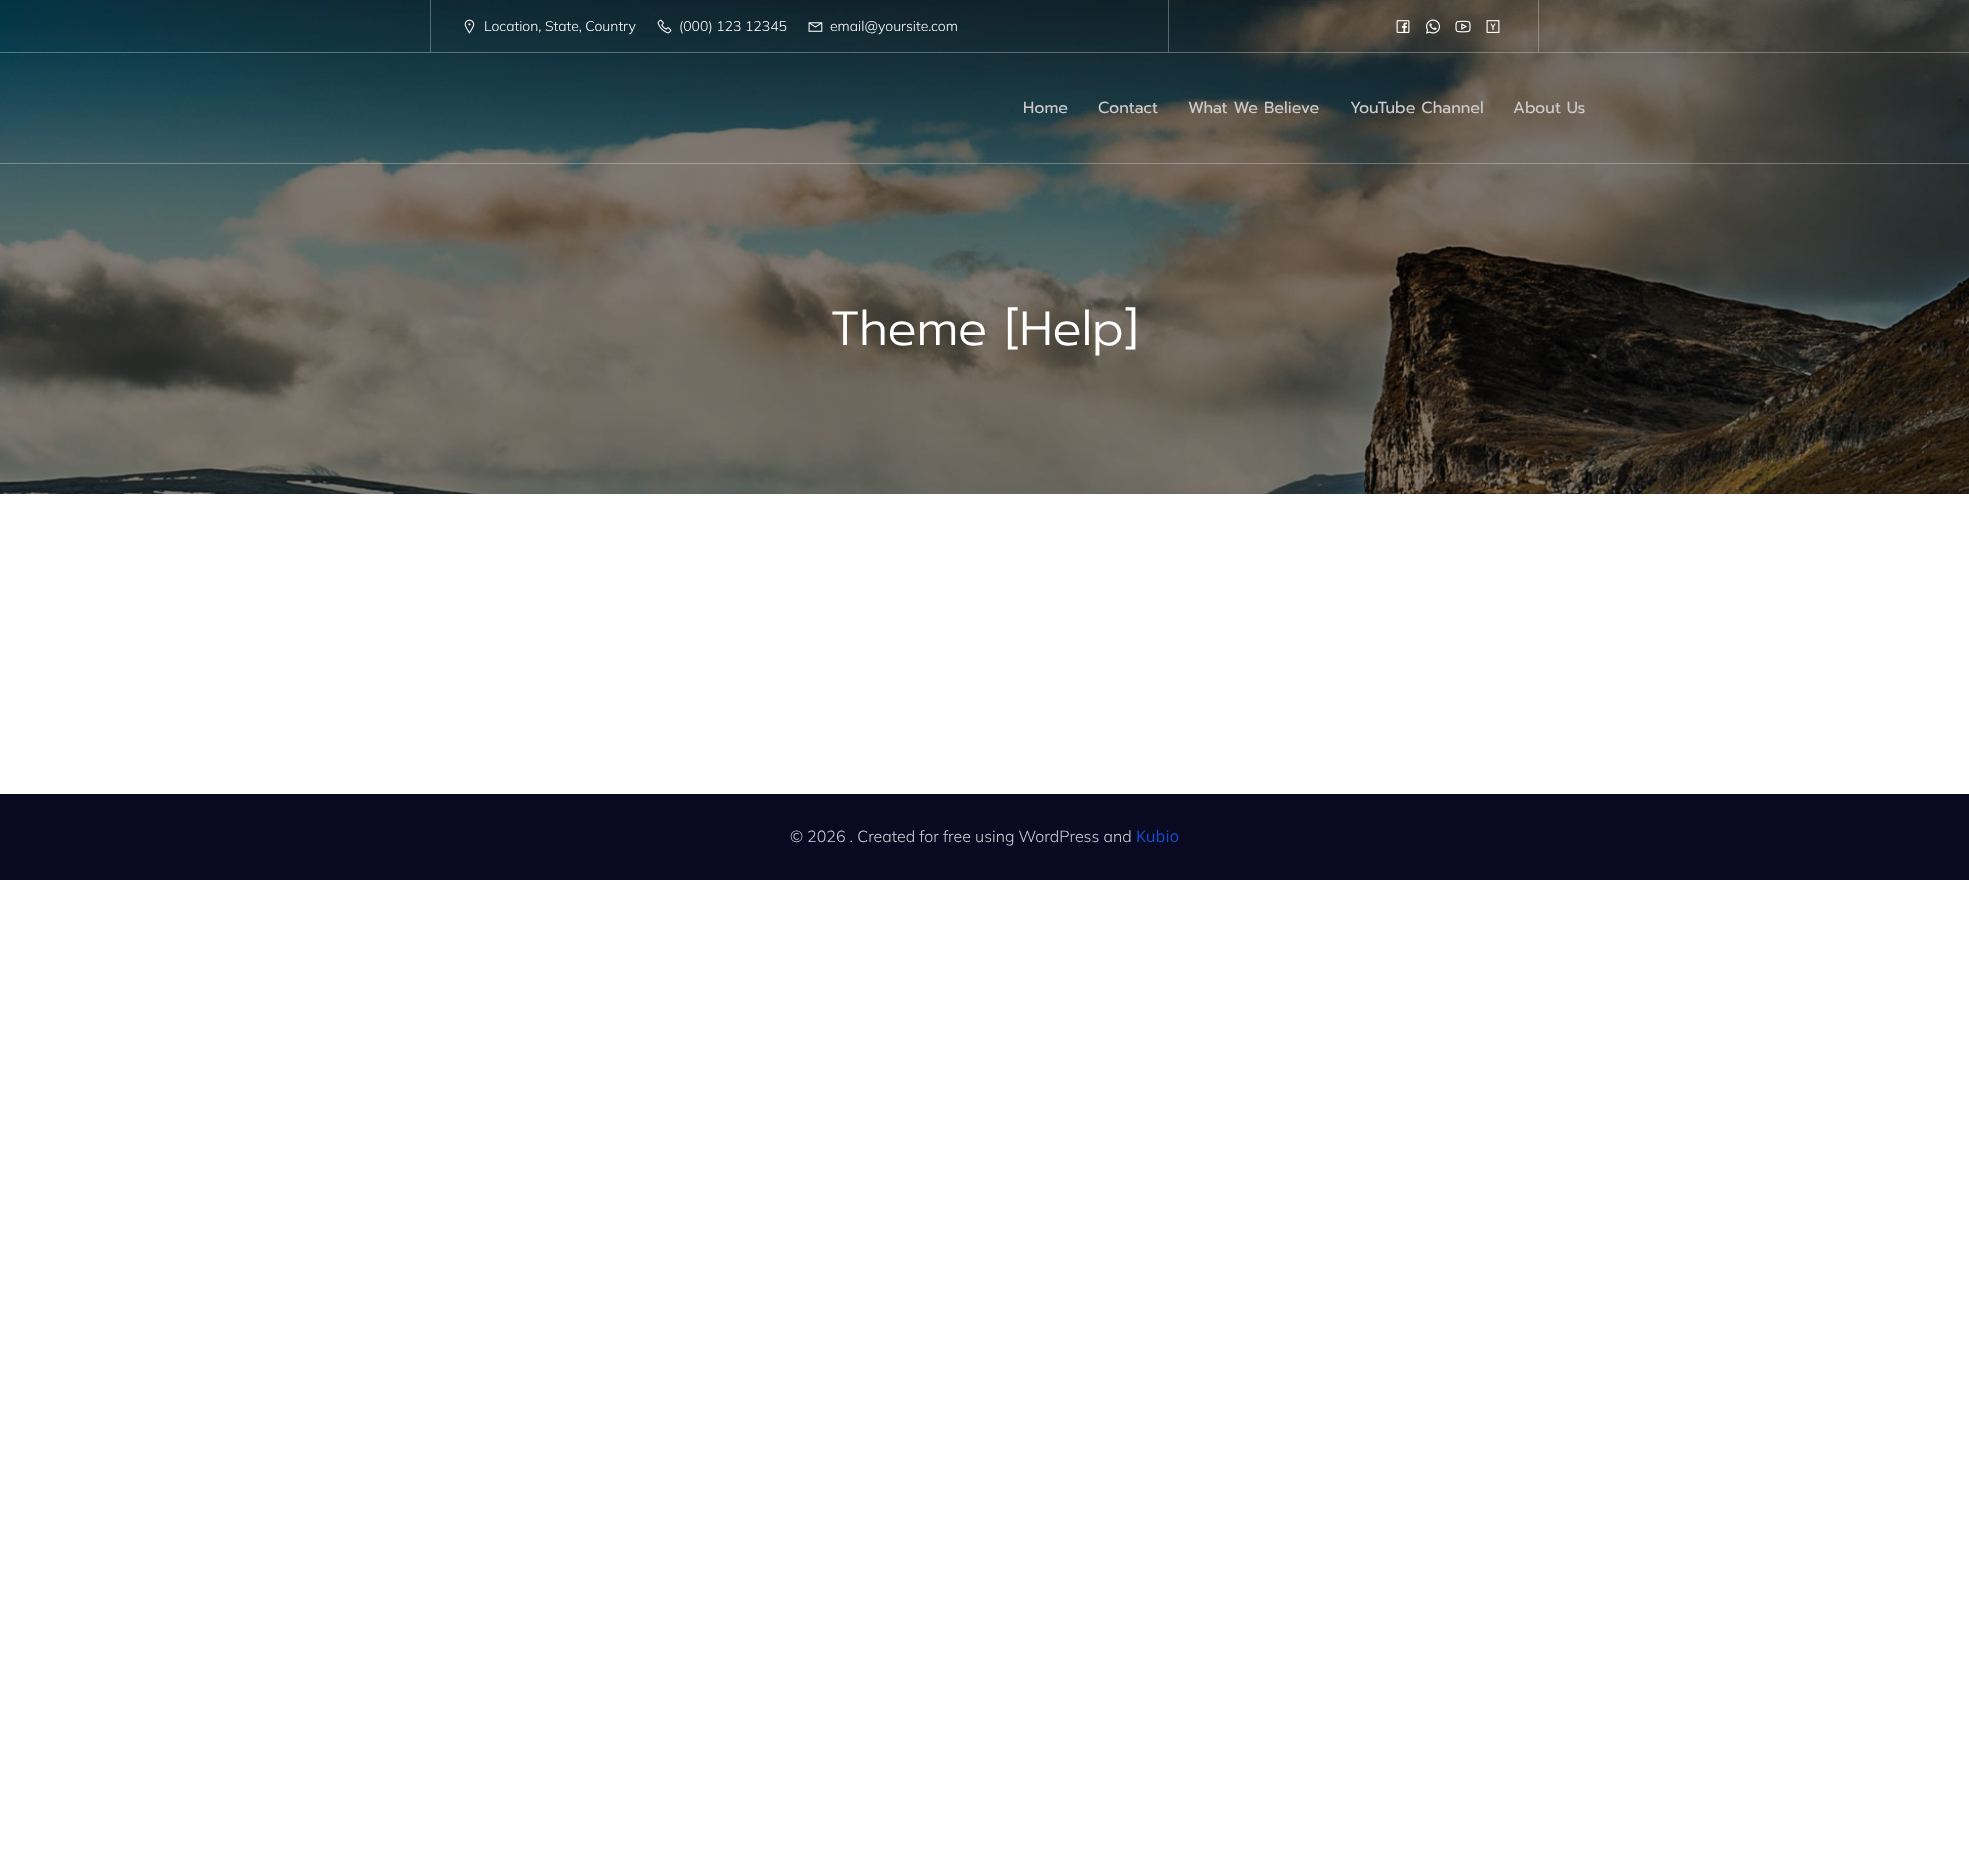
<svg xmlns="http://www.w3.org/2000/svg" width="1969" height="1862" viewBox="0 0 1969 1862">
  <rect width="100%" height="100%" fill="rgb(255,255,255)"/>
  <image x="0" y="0" width="1969" height="494" href="pic8.png"/>
  <rect x="0" y="52" width="1969" height="1" fill="rgba(255,255,255,0.3)"/>
  <rect x="1168" y="0" width="1" height="52" fill="rgba(255,255,255,0.3)"/>
  <rect x="430" y="0" width="1" height="52" fill="rgba(255,255,255,0.3)"/>
  <image x="464" y="19" width="11" height="15" href="pic1.png"/>
  <text x="484" y="31" font-family="Mulish" font-size="14" font-weight="300" fill="rgb(255,255,255)">Location, State, Country</text>
  <image x="657" y="19" width="15" height="15" href="pic2.png"/>
  <text x="679" y="31" font-family="Mulish" font-size="14" font-weight="300" fill="rgb(255,255,255)">(000) 123 12345</text>
  <image x="808" y="22" width="15" height="10" href="pic3.png"/>
  <text x="830" y="31" font-family="Mulish" font-size="14" font-weight="300" fill="rgb(255,255,255)">email@yoursite.com</text>
  <rect x="1538" y="0" width="1" height="52" fill="rgba(255,255,255,0.3)"/>
  <image x="1396" y="20" width="14" height="13" href="pic4.png"/>
  <image x="1426" y="19" width="14" height="15" href="pic5.png"/>
  <image x="1455" y="20" width="16" height="13" href="pic6.png"/>
  <image x="1486" y="20" width="14" height="13" href="pic7.png"/>
  <rect x="0" y="163" width="1969" height="1" fill="rgba(255,255,255,0.3)"/>
  <g font-family="Prompt" font-size="16" fill="rgb(204,204,204)">
    <text x="1023" y="113">Home</text>
    <text x="1098" y="113">Contact</text>
    <text x="1188" y="113">What We Believe</text>
    <text x="1350" y="113">YouTube Channel</text>
    <text x="1513" y="113">About Us</text>
  </g>
  <text x="831" y="345" font-family="Prompt" font-size="48" font-weight="300" fill="rgb(255,255,255)">Theme [Help]</text>
  <rect x="0" y="794" width="1969" height="86" fill="rgb(9,9,33)"/>
  <text x="790" y="842" font-family="Mulish" font-size="16" font-weight="300" fill="rgb(206,206,211)">© 2026 . Created for free using WordPress and</text>
  <text x="1136" y="842" font-family="Open Sans" font-size="16" fill="rgb(20,79,209)">Kubio</text>
</svg>
